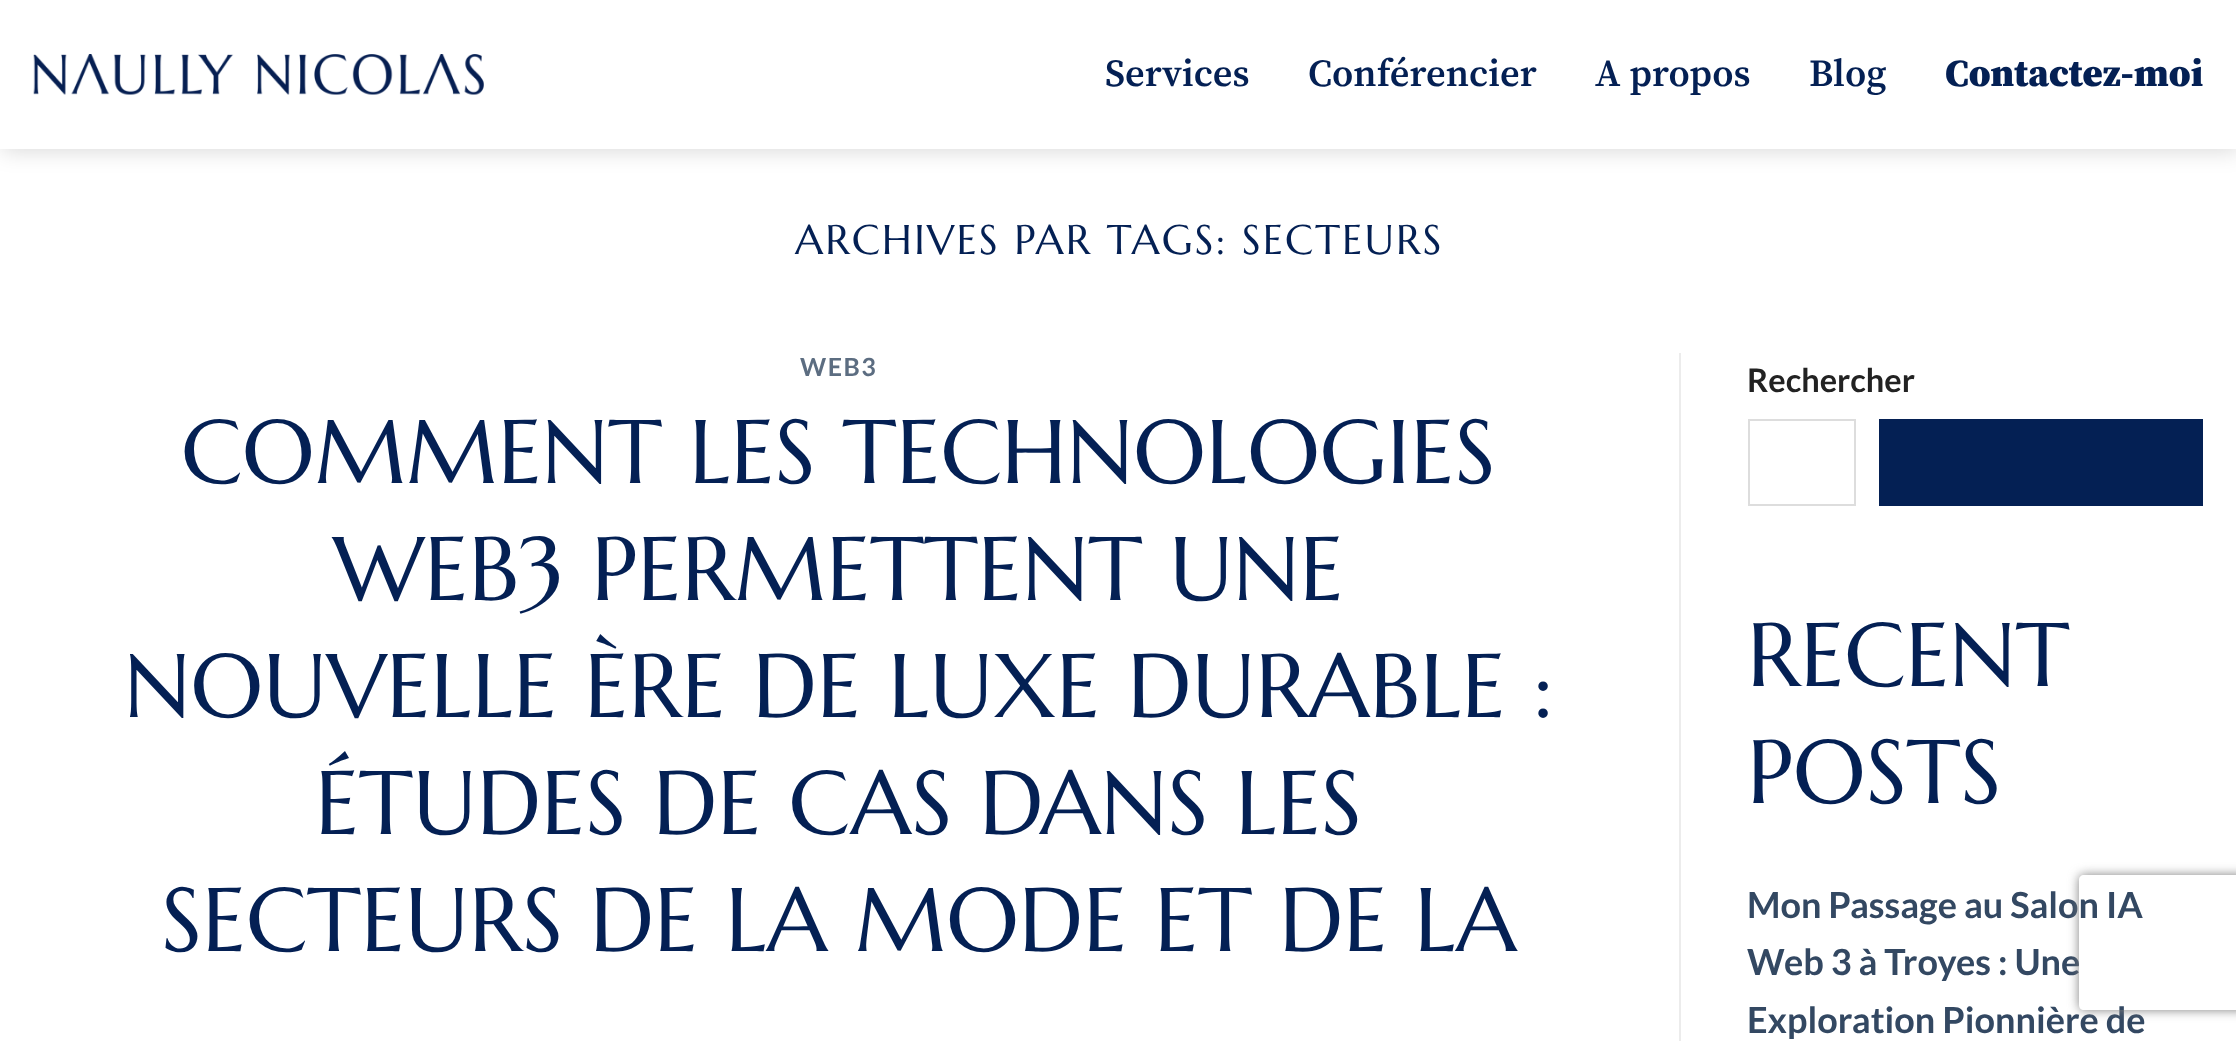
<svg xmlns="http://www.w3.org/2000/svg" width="2236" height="1041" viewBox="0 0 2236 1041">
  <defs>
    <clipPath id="clip1"><path d="M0 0H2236V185H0ZM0 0H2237V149H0Z" clip-rule="evenodd"/></clipPath>
    <clipPath id="clip2"><path d="M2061 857H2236V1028H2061ZM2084 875H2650C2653 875 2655 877 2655 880V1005C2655 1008 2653 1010 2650 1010H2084C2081 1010 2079 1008 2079 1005V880C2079 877 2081 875 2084 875Z" clip-rule="evenodd"/></clipPath>
  </defs>
  <rect width="100%" height="100%" fill="rgb(255,255,255)"/>
  <g clip-path="url(#clip1)">
    <rect x="2" y="2" width="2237" height="149" fill="rgba(0,0,0,0.15)" filter="blur(11px)"/>
  </g>
  <image x="33" y="54" width="451" height="41" href="pic1.png"/>
  <g font-family="'Source Serif 4'" font-size="38.25" font-weight="600" fill="rgb(4,32,84)">
    <text x="1105" y="86">Services</text>
    <text x="1308" y="86">Conférencier</text>
    <text x="1595" y="86">A propos</text>
    <text x="1809" y="86">Blog</text>
  </g>
  <text x="1945" y="86" font-family="'Source Serif 4'" font-size="38.25" font-weight="900" fill="rgb(4,32,84)">Contactez-moi</text>
  <rect x="0" y="148" width="2236" height="1" fill="rgba(255,255,255,0.9)"/>
  <text x="795" y="254" font-family="Marcellus" font-size="41.4" letter-spacing="2.1" fill="rgb(4,32,84)">ARCHIVES PAR TAGS: SECTEURS</text>
  <text x="800" y="376" font-family="Lato" font-size="25" font-weight="bold" letter-spacing="1.5" fill="rgb(92,109,129)">WEB3</text>
  <g font-family="Marcellus" font-size="90" fill="rgb(4,32,84)">
    <text x="181" y="483">COMMENT LES TECHNOLOGIES</text>
    <text x="333" y="600">WEB3 PERMETTENT UNE</text>
    <text x="124" y="717">NOUVELLE ÈRE DE LUXE DURABLE :</text>
    <text x="315" y="834">ÉTUDES DE CAS DANS LES</text>
    <text x="161" y="951">SECTEURS DE LA MODE ET DE LA</text>
  </g>
  <rect x="1679" y="353" width="2" height="688" fill="rgb(236,236,236)"/>
  <text x="1747" y="392" font-family="Lato" font-size="32.5" font-weight="bold" fill="rgb(34,34,34)">Rechercher</text>
  <rect x="1749" y="420" width="106" height="85" fill="none" stroke="rgb(221,221,221)" stroke-width="2"/>
  <rect x="1879" y="419" width="324" height="87" fill="rgb(4,32,84)"/>
  <g font-family="Marcellus" font-size="90" fill="rgb(4,32,84)">
    <text>
      <tspan x="1747" y="686">RECENT</tspan>
      <tspan x="1747" y="803">POSTS</tspan>
    </text>
  </g>
  <g font-family="Lato" font-size="36" font-weight="bold" fill="rgb(51,72,98)">
    <text>
      <tspan x="1747" y="918">Mon Passage au Salon IA</tspan>
      <tspan x="1747" y="975">Web 3 à Troyes : Une</tspan>
      <tspan x="1747" y="1033">Exploration Pionnière de</tspan>
    </text>
  </g>
  <g clip-path="url(#clip2)">
    <rect x="2079" y="875" width="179" height="135" rx="5" fill="rgb(128,128,128)" filter="blur(5.5px)"/>
  </g>
</svg>
